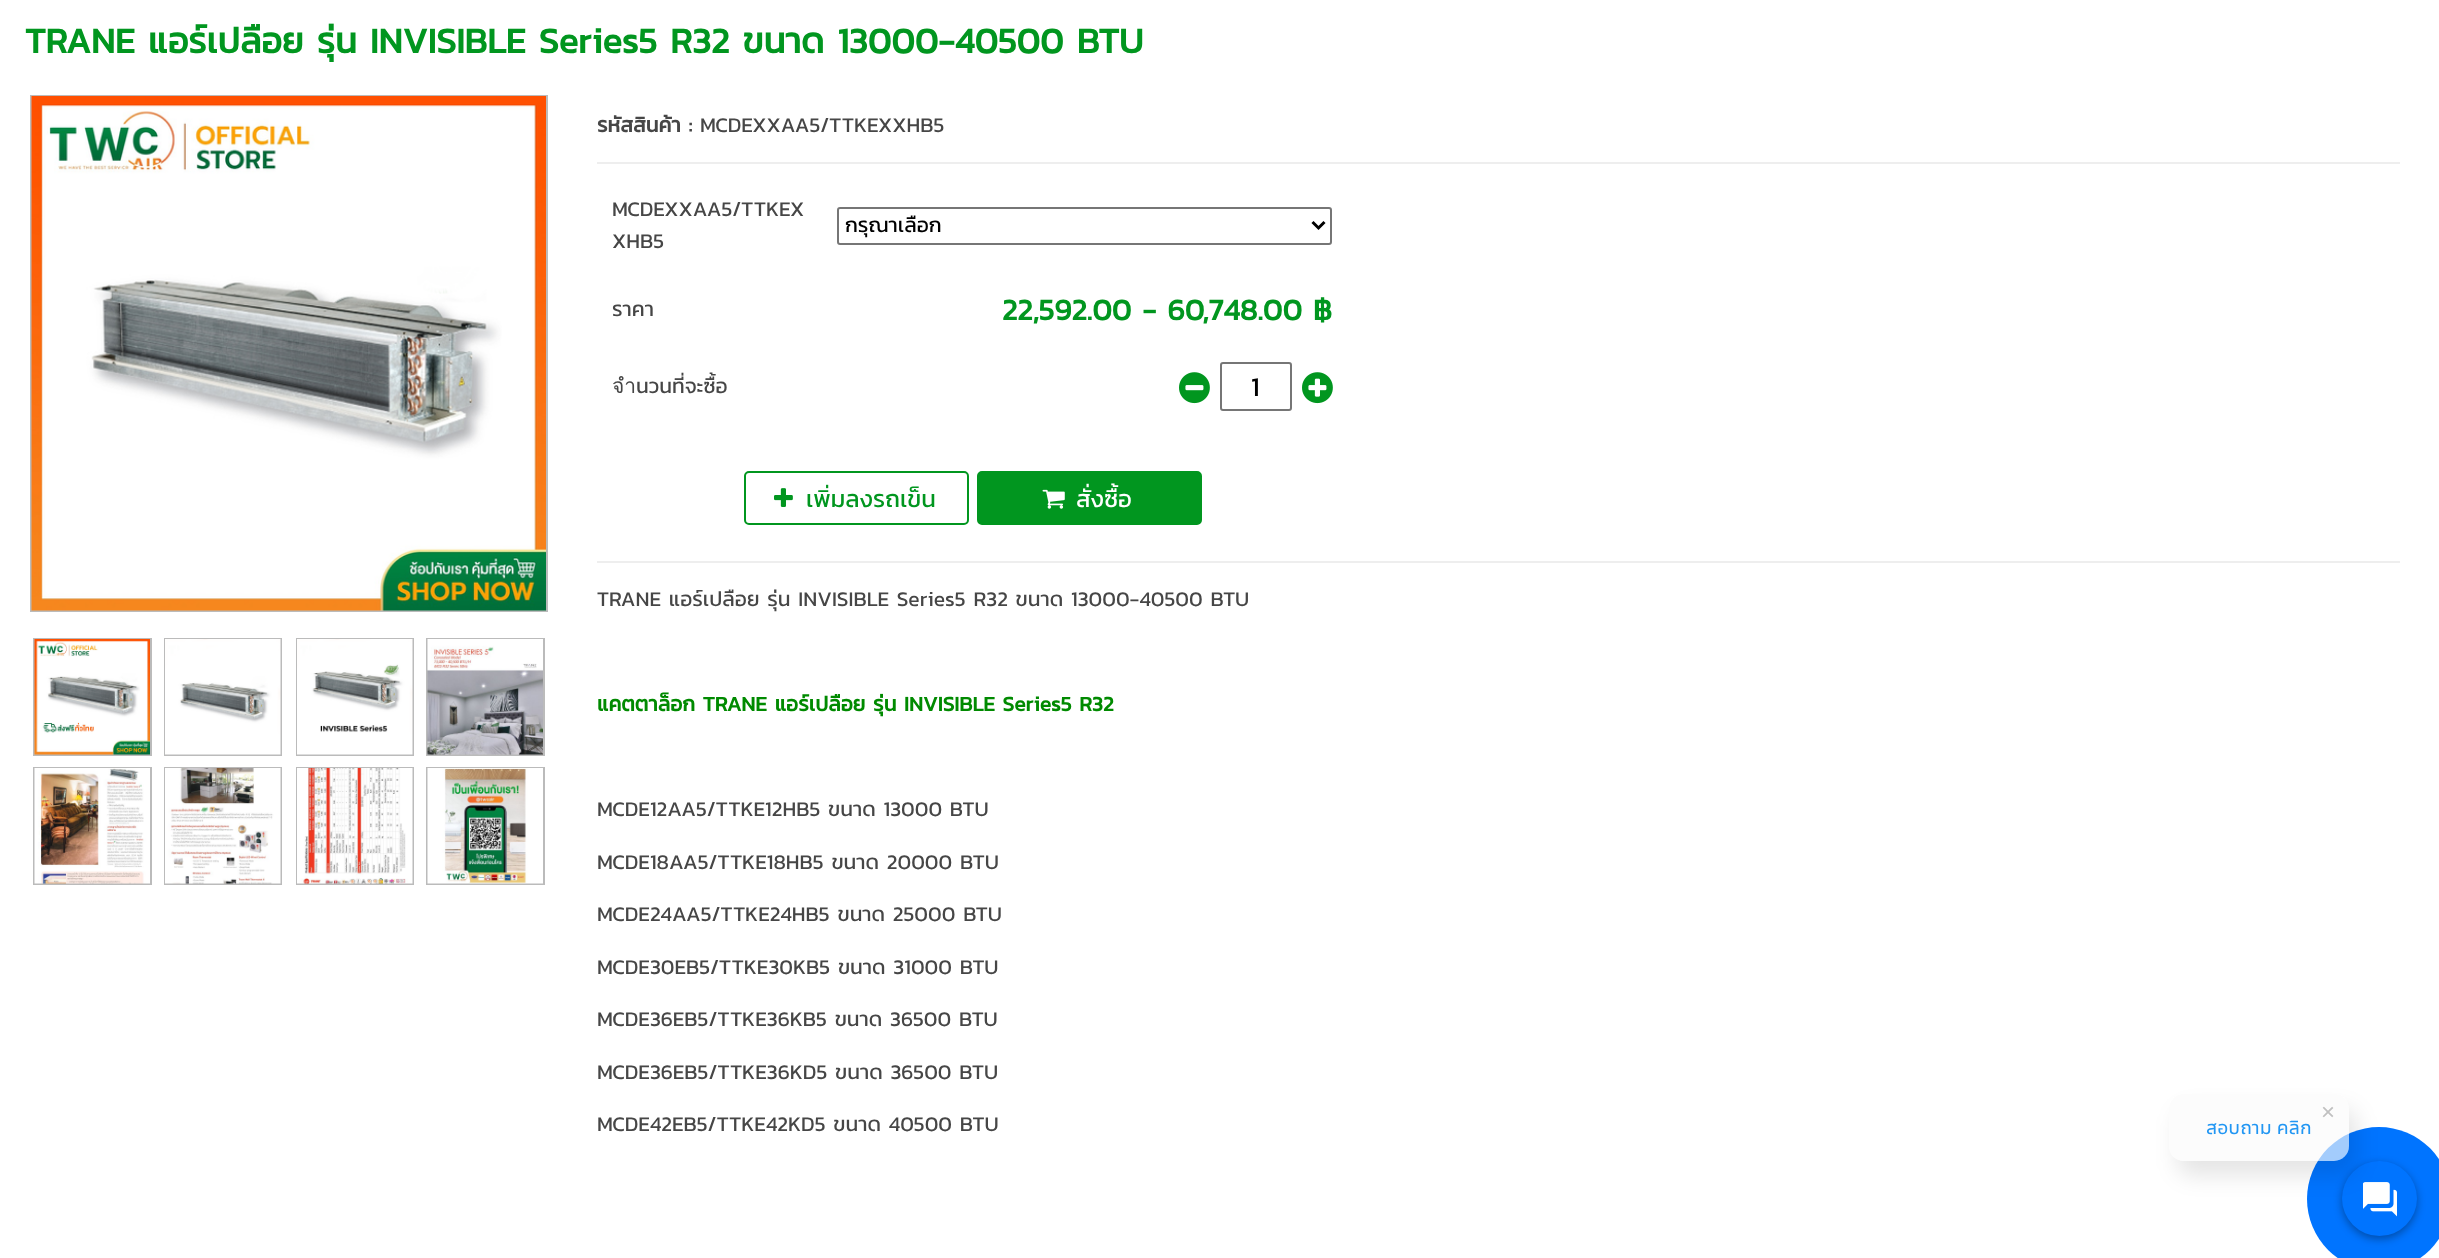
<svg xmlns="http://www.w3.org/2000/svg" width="2439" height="1258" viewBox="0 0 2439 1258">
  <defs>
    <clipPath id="clip1"><path d="M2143 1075H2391V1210H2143ZM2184 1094H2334C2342.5 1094 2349 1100.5 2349 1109V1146C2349 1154.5 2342.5 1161 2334 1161H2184C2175.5 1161 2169 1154.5 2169 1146V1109C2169 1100.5 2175.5 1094 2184 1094Z" clip-rule="evenodd"/></clipPath>
  </defs>
  <rect width="100%" height="100%" fill="rgb(255,255,255)"/>
  <text x="25" y="53" font-family="Kanit" font-size="36" font-weight="bold" fill="rgb(1,150,31)">TRANE แอร์เปลือย รุ่น INVISIBLE Series5 R32 ขนาด 13000-40500 BTU</text>
  <rect x="31" y="96" width="516" height="515" fill="none" stroke="rgb(187,187,187)" stroke-width="2"/>
  <image x="31" y="96" width="515" height="515" href="pic1.png"/>
  <rect x="34" y="639" width="117" height="116" fill="none" stroke="rgb(187,187,187)" stroke-width="2"/>
  <image x="34" y="639" width="116" height="116" href="pic2.png"/>
  <rect x="165" y="639" width="116" height="116" fill="none" stroke="rgb(187,187,187)" stroke-width="2"/>
  <image x="165" y="639" width="116" height="116" href="pic3.png"/>
  <rect x="297" y="639" width="116" height="116" fill="none" stroke="rgb(187,187,187)" stroke-width="2"/>
  <image x="297" y="639" width="116" height="116" href="pic4.png"/>
  <rect x="427" y="639" width="117" height="116" fill="none" stroke="rgb(187,187,187)" stroke-width="2"/>
  <image x="427" y="639" width="116" height="116" href="pic5.png"/>
  <rect x="34" y="768" width="117" height="116" fill="none" stroke="rgb(187,187,187)" stroke-width="2"/>
  <image x="34" y="768" width="116" height="116" href="pic6.png"/>
  <rect x="165" y="768" width="116" height="116" fill="none" stroke="rgb(187,187,187)" stroke-width="2"/>
  <image x="165" y="768" width="116" height="116" href="pic7.png"/>
  <rect x="297" y="768" width="116" height="116" fill="none" stroke="rgb(187,187,187)" stroke-width="2"/>
  <image x="297" y="768" width="116" height="116" href="pic8.png"/>
  <rect x="427" y="768" width="117" height="116" fill="none" stroke="rgb(187,187,187)" stroke-width="2"/>
  <image x="427" y="768" width="116" height="116" href="pic9.png"/>
  <text x="597" y="132" font-family="Kanit" font-size="21" font-weight="bold" fill="rgb(70,70,70)">รหัสสินค้า :</text>
  <text x="700" y="132" font-family="Kanit" font-size="21" fill="rgb(70,70,70)">MCDEXXAA5/TTKEXXHB5</text>
  <rect x="597" y="162" width="1803" height="2" fill="rgb(238,238,238)"/>
  <rect x="597" y="561" width="1803" height="2" fill="rgb(238,238,238)"/>
  <g font-family="Kanit" font-size="21" fill="rgb(70,70,70)">
    <text>
      <tspan x="612" y="216">MCDEXXAA5/TTKEX</tspan>
      <tspan x="612" y="248">XHB5</tspan>
    </text>
  </g>
  <rect x="838" y="208" width="493" height="36" rx="2" fill="none" stroke="rgb(118,118,118)" stroke-width="2"/>
  <path d="M1312.5 222L1318.5 228L1324.5 222" fill="none" stroke="rgb(0,0,0)" stroke-width="3"/>
  <text x="845" y="232" font-family="Kanit" font-size="21" fill="rgb(0,0,0)">กรุณาเลือก</text>
  <text x="612" y="316" font-family="Kanit" font-size="21" fill="rgb(70,70,70)">ราคา</text>
  <text x="1002" y="320" font-family="Kanit" font-size="30" font-weight="bold" fill="rgb(1,150,31)">22,592.00 - 60,748.00 ฿</text>
  <text x="612" y="393" font-family="Kanit" font-size="21" fill="rgb(70,70,70)">จำนวนที่จะซื้อ</text>
  <image x="1179" y="372" width="31" height="32" href="pic10.png"/>
  <rect x="1221" y="363" width="70" height="47" rx="2" fill="none" stroke="rgb(118,118,118)" stroke-width="2"/>
  <text x="1251" y="396" font-family="Kanit" font-size="27" fill="rgb(0,0,0)">1</text>
  <image x="1302" y="372" width="31" height="32" href="pic11.png"/>
  <rect x="745" y="472" width="223" height="52" rx="4" fill="none" stroke="rgb(1,150,31)" stroke-width="2"/>
  <image x="774" y="488" width="19" height="19" href="pic12.png"/>
  <text x="806" y="507" font-family="Kanit" font-size="24" fill="rgb(1,150,31)">เพิ่มลงรถเข็น</text>
  <rect x="978" y="472" width="223" height="52" rx="4" fill="rgb(1,150,31)" stroke="rgb(1,150,31)" stroke-width="2"/>
  <image x="1042" y="489" width="23" height="20" href="pic13.png"/>
  <text x="1076" y="507" font-family="Kanit" font-size="24" fill="rgb(255,255,255)">สั่งซื้อ</text>
  <text x="597" y="606" font-family="Kanit" font-size="21" fill="rgb(70,70,70)">TRANE แอร์เปลือย รุ่น INVISIBLE Series5 R32 ขนาด 13000-40500 BTU</text>
  <text x="597" y="711" font-family="Kanit" font-size="21" font-weight="bold" fill="rgb(0,138,0)">แคตตาล็อก TRANE แอร์เปลือย รุ่น INVISIBLE Series5 R32</text>
  <g font-family="Kanit" font-size="21" fill="rgb(70,70,70)">
    <text x="597" y="816">MCDE12AA5/TTKE12HB5 ขนาด 13000 BTU</text>
    <text x="597" y="869">MCDE18AA5/TTKE18HB5 ขนาด 20000 BTU</text>
    <text x="597" y="921">MCDE24AA5/TTKE24HB5 ขนาด 25000 BTU</text>
    <text x="597" y="974">MCDE30EB5/TTKE30KB5 ขนาด 31000 BTU</text>
    <text x="597" y="1026">MCDE36EB5/TTKE36KB5 ขนาด 36500 BTU</text>
    <text x="597" y="1079">MCDE36EB5/TTKE36KD5 ขนาด 36500 BTU</text>
    <text x="597" y="1131">MCDE42EB5/TTKE42KD5 ขนาด 40500 BTU</text>
  </g>
  <circle cx="2379" cy="1199" r="72" fill="rgb(0,116,255)"/>
  <rect x="2169" y="1094" width="180" height="67" rx="15" fill="rgba(255,255,255,0.3)"/>
  <rect x="2342" y="1164" width="75" height="75" rx="37.5" fill="rgba(0,0,0,0.35)" filter="blur(4px)"/>
  <circle cx="2379.5" cy="1198.5" r="37.5" fill="rgb(0,116,255)"/>
  <image x="2363" y="1182" width="34" height="35" href="pic14.png"/>
  <g clip-path="url(#clip1)">
    <rect x="2177" y="1109" width="180" height="67" rx="15" fill="rgba(0,0,0,0.1)" filter="blur(11px)"/>
  </g>
  <rect x="2169" y="1094" width="180" height="67" rx="15" fill="rgba(250,250,250,0.5)"/>
  <text x="2321" y="1120" font-family="Liberation Sans" font-size="24" fill="rgb(192,192,192)">×</text>
  <text x="2206" y="1134" font-family="Noto Sans Thai UI" font-size="19.5" fill="rgb(33,150,243)">สอบถาม คลิก</text>
</svg>
